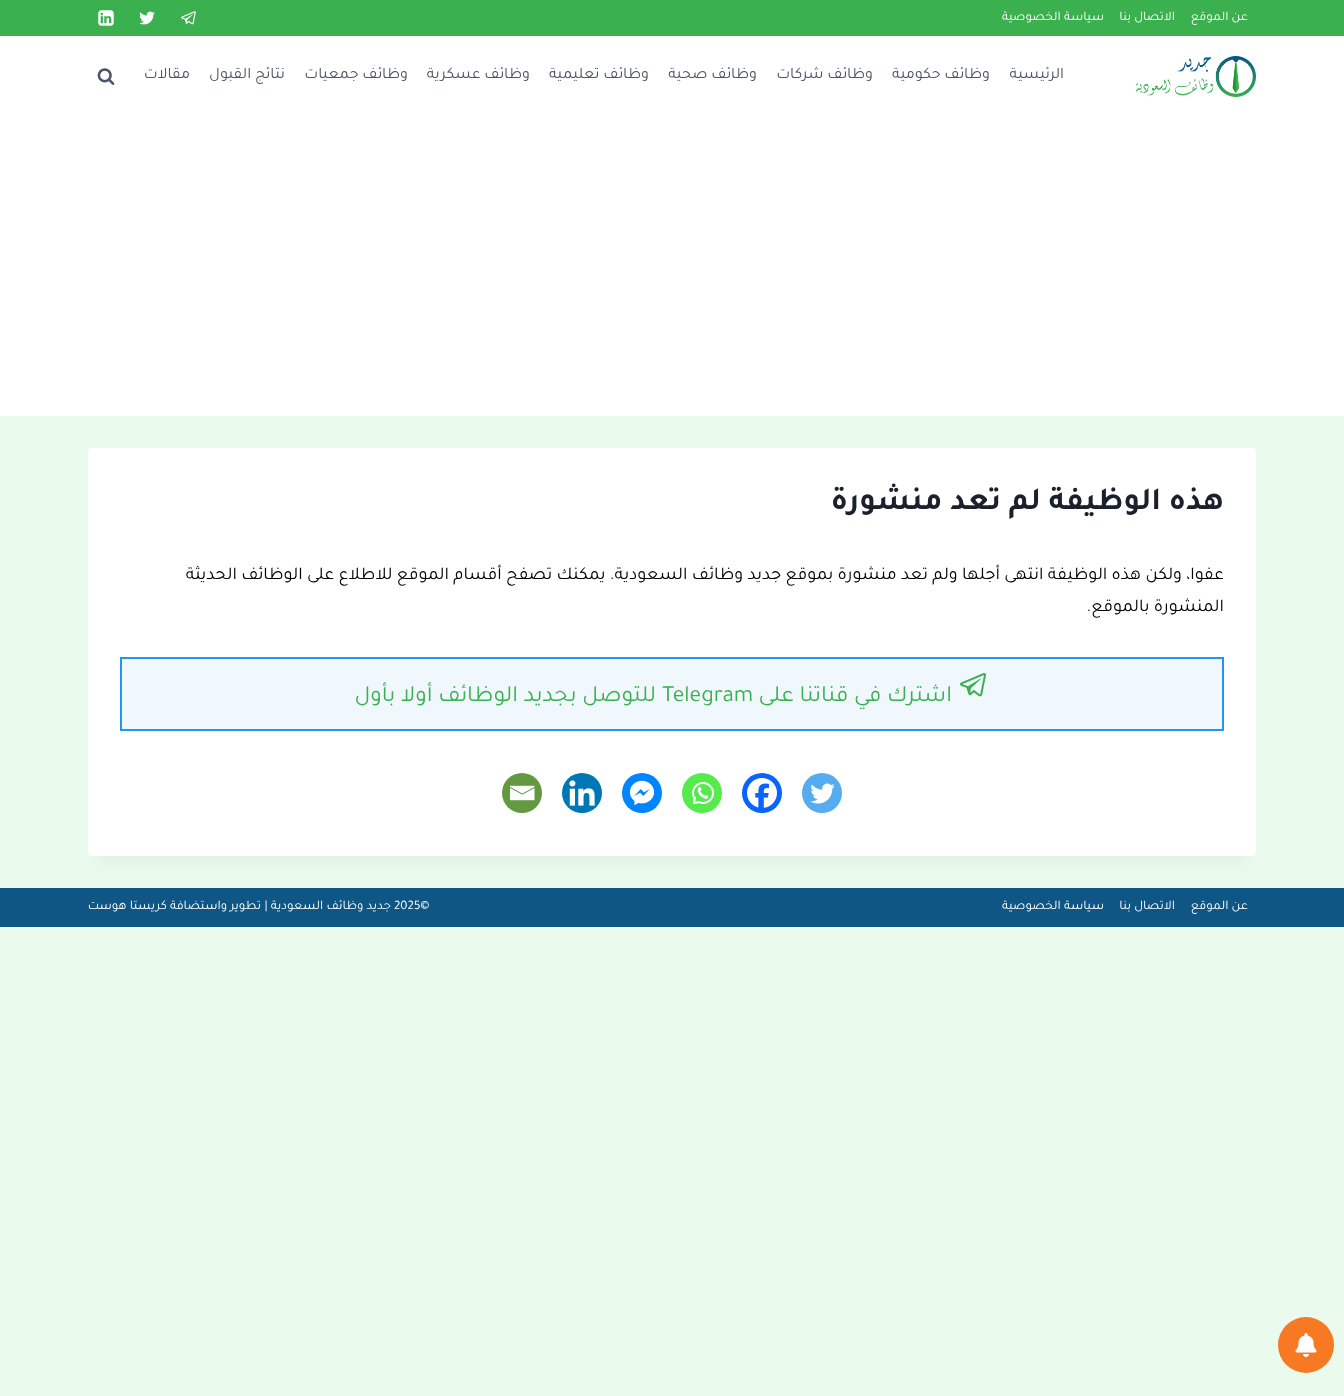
<svg xmlns="http://www.w3.org/2000/svg" width="1344" height="1396" viewBox="0 0 1344 1396">
  <rect width="100%" height="100%" fill="rgb(234,250,237)"/>
  <rect x="0" y="36" width="1344" height="380" fill="rgb(255,255,255)"/>
  <rect x="0" y="0" width="1344" height="36" fill="rgb(58,176,78)"/>
  <g font-family="Tajawal" font-size="13" direction="rtl" fill="rgb(255,255,255)">
    <text x="1248" y="20">عن الموقع</text>
    <text x="1175" y="20">الاتصال بنا</text>
    <text x="1104" y="20">سياسة الخصوصية</text>
  </g>
  <image x="181" y="11" width="15" height="14" href="pic1.png"/>
  <image x="139" y="11" width="16" height="14" href="pic2.png"/>
  <image x="98" y="10" width="16" height="16" href="pic3.png"/>
  <image x="1136" y="56" width="120" height="41" href="pic4.png"/>
  <g font-family="Tajawal" font-size="16" direction="rtl" fill="rgb(74,85,104)">
    <text x="1064" y="78">الرئيسية</text>
    <text x="990" y="78">وظائف حكومية</text>
    <text x="873" y="78">وظائف شركات</text>
    <text x="757" y="78">وظائف صحية</text>
    <text x="649" y="78">وظائف تعليمية</text>
    <text x="530" y="78">وظائف عسكرية</text>
    <text x="408" y="78">وظائف جمعيات</text>
    <text x="285" y="78">نتائج القبول</text>
    <text x="190" y="78">مقالات</text>
  </g>
  <image x="97" y="68" width="18" height="17" href="pic5.png"/>
  <rect x="98" y="473" width="1148" height="388" fill="rgba(0,0,0,0.05)" filter="blur(7.5px)"/>
  <rect x="88" y="448" width="1168" height="408" rx="4" fill="rgb(255,255,255)"/>
  <text x="1224" y="509" font-family="Tajawal" font-size="32" font-weight="bold" direction="rtl" fill="rgb(26,32,44)">هذه الوظيفة لم تعد منشورة</text>
  <g font-family="Tajawal" font-size="18" direction="rtl" fill="rgb(0,0,0)">
    <text>
      <tspan x="1224" y="579">عفوا، ولكن هذه الوظيفة انتهى أجلها ولم تعد منشورة بموقع جديد وظائف السعودية. يمكنك تصفح أقسام الموقع للاطلاع على الوظائف الحديثة</tspan>
      <tspan x="1224" y="611">المنشورة بالموقع.</tspan>
    </text>
  </g>
  <rect x="121" y="658" width="1102" height="72" fill="rgb(240,248,254)" stroke="rgb(33,150,243)" stroke-width="2"/>
  <image x="960" y="673" width="26" height="24" href="pic6.png"/>
  <text x="952" y="701" font-family="Tajawal" font-size="23.4" direction="rtl" fill="rgb(58,176,78)">اشترك في قناتنا على</text>
  <text x="662" y="701" font-family="Tajawal" font-size="23.4" fill="rgb(58,176,78)">Telegram</text>
  <text x="656" y="701" font-family="Tajawal" font-size="23.4" direction="rtl" fill="rgb(58,176,78)">للتوصل بجديد الوظائف أولا بأول</text>
  <circle cx="822" cy="793" r="20" fill="rgb(85,172,238)"/>
  <image x="810" y="783" width="25" height="21" href="pic7.png"/>
  <circle cx="762" cy="793" r="20" fill="rgb(7,101,254)"/>
  <image x="747" y="778" width="30" height="30" href="pic8.png"/>
  <circle cx="702" cy="793" r="20" fill="rgb(85,235,76)"/>
  <image x="692" y="782" width="22" height="23" href="pic9.png"/>
  <circle cx="642" cy="793" r="20" fill="rgb(0,132,255)"/>
  <image x="629" y="780" width="26" height="26" href="pic10.png"/>
  <circle cx="582" cy="793" r="20" fill="rgb(0,119,181)"/>
  <image x="569" y="780" width="26" height="26" href="pic11.png"/>
  <circle cx="522" cy="793" r="20" fill="rgb(100,154,63)"/>
  <image x="510" y="785" width="25" height="16" href="pic12.png"/>
  <rect x="0" y="888" width="1344" height="39" fill="rgb(15,86,133)"/>
  <g font-family="Tajawal" font-size="13" direction="rtl" fill="rgb(255,255,255)">
    <text x="1248" y="909">عن الموقع</text>
    <text x="1175" y="909">الاتصال بنا</text>
    <text x="1104" y="909">سياسة الخصوصية</text>
  </g>
  <text x="394" y="909" font-family="Tajawal" font-size="13" fill="rgb(255,255,255)">2025©</text>
  <g font-family="Tajawal" font-size="13" direction="rtl" fill="rgb(255,255,255)">
    <text x="391" y="909">جديد وظائف السعودية |</text>
    <text x="261" y="909">تطوير واستضافة كريستا هوست</text>
  </g>
  <circle cx="1306" cy="1345" r="28" fill="rgb(247,121,36)"/>
  <image x="1295" y="1333" width="22" height="24" href="pic13.png"/>
</svg>
